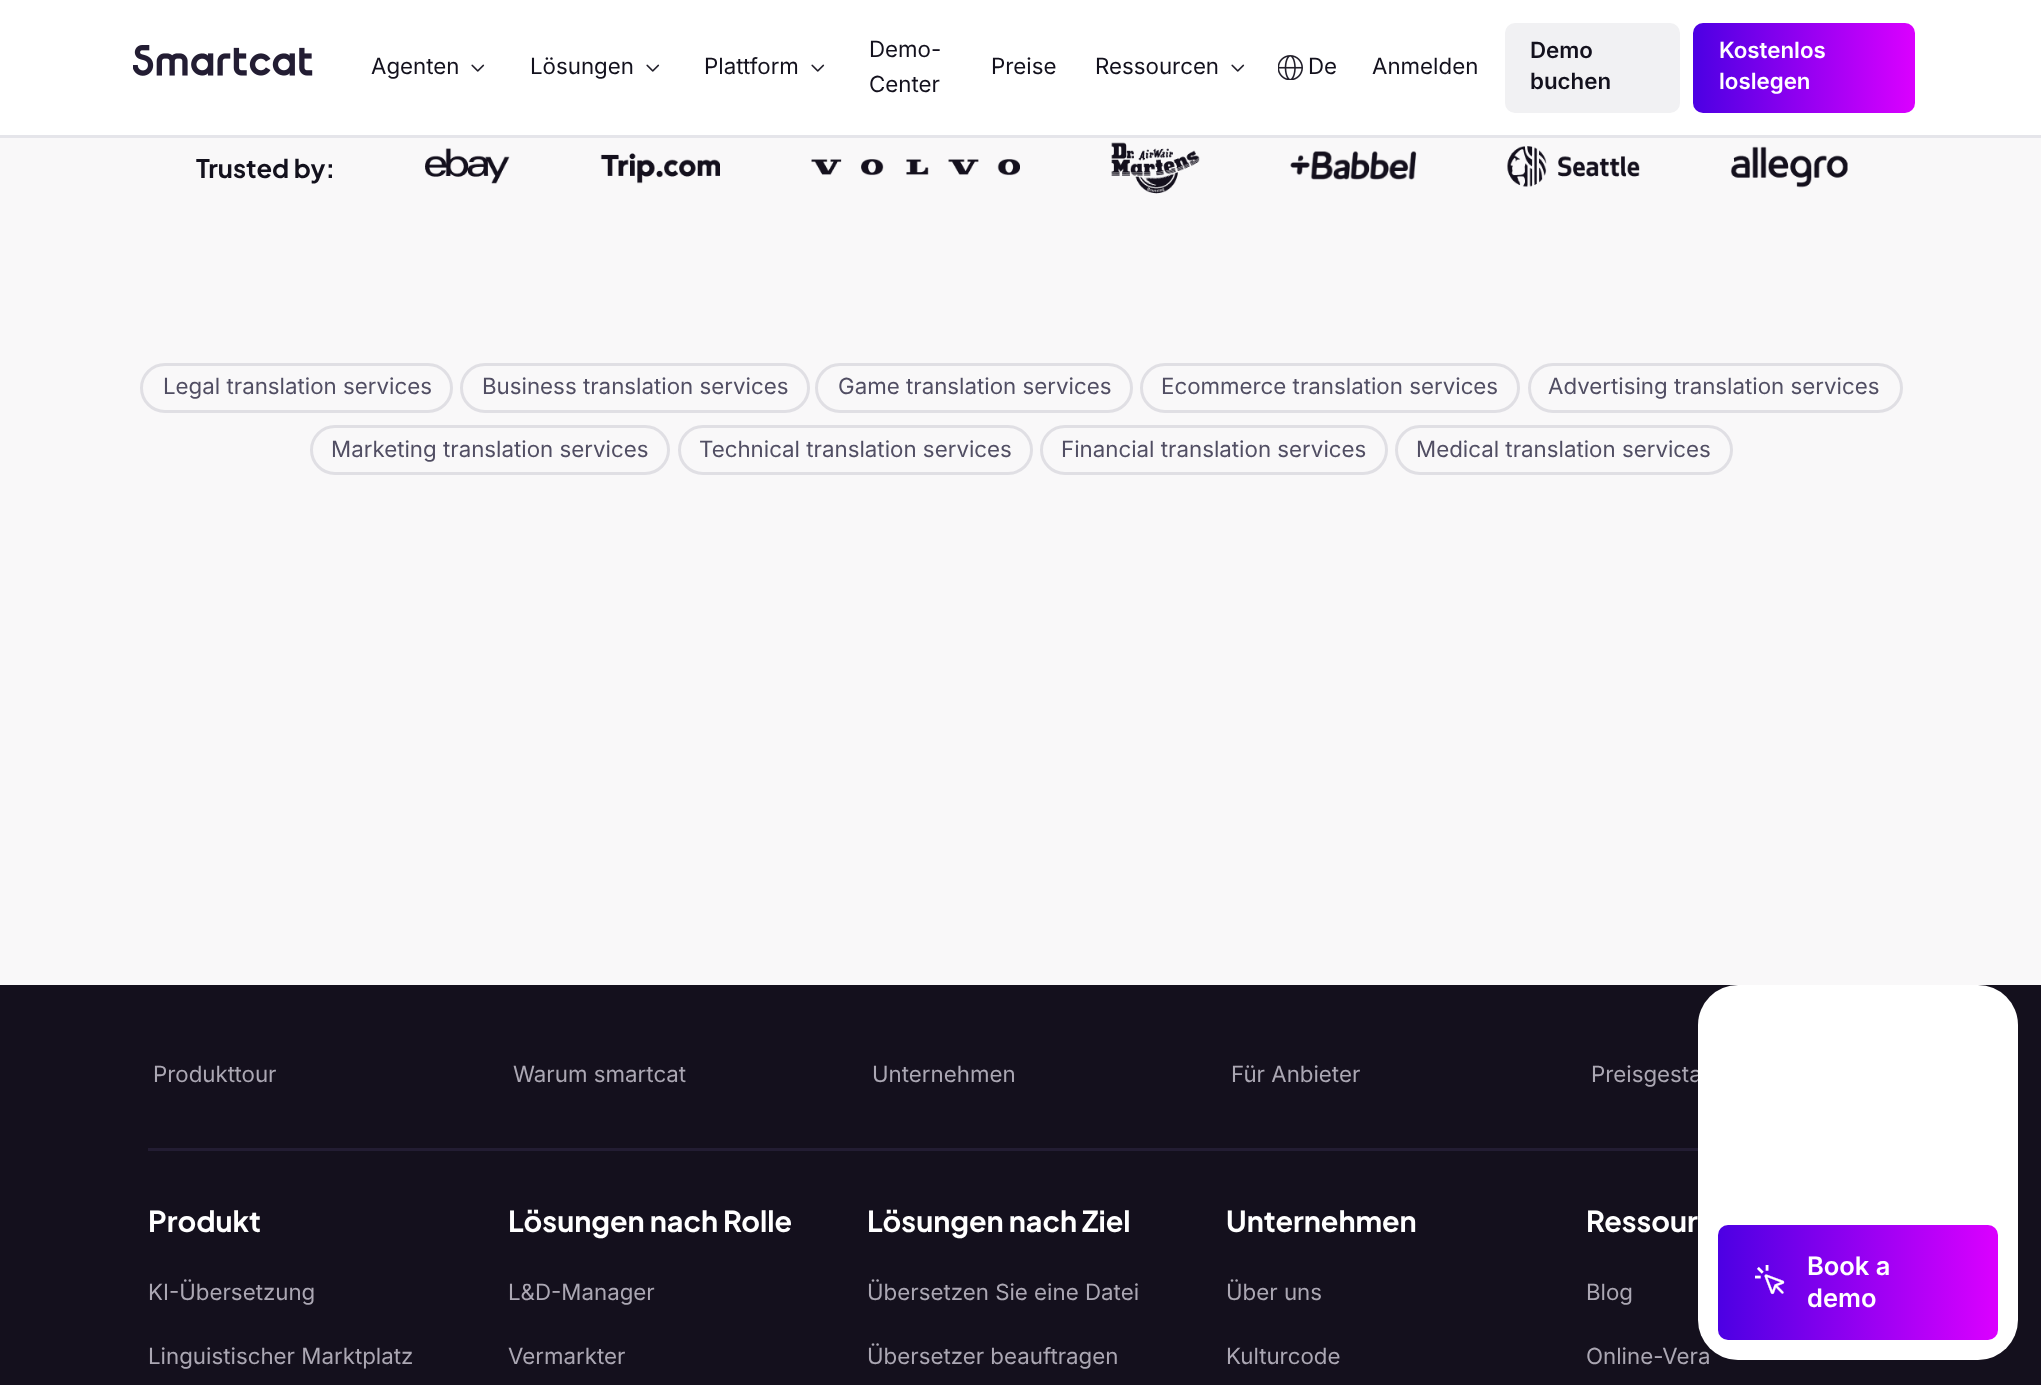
<svg xmlns="http://www.w3.org/2000/svg" width="2041" height="1385" viewBox="0 0 2041 1385">
  <defs>
    <linearGradient id="g1" gradientUnits="userSpaceOnUse" x1="1915" y1="67" x2="1693" y2="68"><stop offset="0" stop-color="rgb(219,0,255)"/><stop offset="1" stop-color="rgb(76,0,227)"/></linearGradient>
    <linearGradient id="g2" gradientUnits="userSpaceOnUse" x1="1998" y1="1283" x2="1718" y2="1283"><stop offset="0" stop-color="rgb(219,0,255)"/><stop offset="1" stop-color="rgb(76,0,227)"/></linearGradient>
    <clipPath id="clip1"><rect x="1698" y="985" width="320" height="375" rx="40"/></clipPath>
  </defs>
  <rect width="100%" height="100%" fill="rgb(249,248,249)"/>
  <rect x="0" y="0" width="2041" height="135" fill="rgb(255,255,255)"/>
  <rect x="0" y="135" width="2041" height="3" fill="rgb(229,229,234)"/>
  <image x="133" y="45" width="180" height="31" href="pic1.png"/>
  <text x="371" y="74" font-family="Inter" font-size="22.3" fill="rgb(19,17,29)">Agenten</text>
  <image x="471" y="64" width="14" height="8" href="pic2.png"/>
  <text x="530" y="74" font-family="Inter" font-size="22.3" fill="rgb(19,17,29)">Lösungen</text>
  <image x="646" y="64" width="14" height="8" href="pic2.png"/>
  <text x="704" y="74" font-family="Inter" font-size="22.3" fill="rgb(19,17,29)">Plattform</text>
  <image x="811" y="64" width="14" height="8" href="pic2.png"/>
  <g font-family="Inter" font-size="22.3" fill="rgb(19,17,29)">
    <text>
      <tspan x="869" y="57">Demo-</tspan>
      <tspan x="869" y="92">Center</tspan>
    </text>
    <text x="991" y="74">Preise</text>
    <text x="1095" y="74">Ressourcen</text>
  </g>
  <image x="1231" y="64" width="14" height="8" href="pic2.png"/>
  <image x="1278" y="55" width="25" height="25" href="pic3.png"/>
  <g font-family="Inter" font-size="22.3" fill="rgb(19,17,29)">
    <text x="1308" y="74">De</text>
    <text x="1372" y="74">Anmelden</text>
  </g>
  <rect x="1505" y="23" width="175" height="90" rx="10" fill="rgb(241,241,243)"/>
  <g font-family="Inter" font-size="22.3" font-weight="600" fill="rgb(19,17,29)">
    <text>
      <tspan x="1530" y="58">Demo</tspan>
      <tspan x="1530" y="89">buchen</tspan>
    </text>
  </g>
  <rect x="1693" y="23" width="222" height="90" rx="10" fill="url(#g1)"/>
  <g font-family="Inter" font-size="22.3" font-weight="600" fill="rgb(255,255,255)">
    <text>
      <tspan x="1719" y="58">Kostenlos</tspan>
      <tspan x="1719" y="89">loslegen</tspan>
    </text>
  </g>
  <text x="196" y="178" font-family="Plus Jakarta Sans" font-size="25.5" font-weight="bold" fill="rgb(19,17,29)">Trusted by:</text>
  <image x="425" y="148" width="85" height="36" href="pic4.png"/>
  <image x="600" y="153" width="120" height="31" href="pic5.png"/>
  <image x="811" y="159" width="209" height="17" href="pic6.png"/>
  <image x="1111" y="142" width="89" height="52" href="pic7.png"/>
  <image x="1290" y="151" width="127" height="29" href="pic8.png"/>
  <image x="1507" y="146" width="133" height="41" href="pic9.png"/>
  <image x="1730" y="146" width="118" height="42" href="pic10.png"/>
  <rect x="141.5" y="364.5" width="310" height="47" rx="23.5" fill="none" stroke="rgb(224,223,228)" stroke-width="3"/>
  <text x="163" y="394" font-family="Inter" font-size="22.3" fill="rgb(81,78,99)">Legal translation services</text>
  <rect x="461.5" y="364.5" width="347" height="47" rx="23.5" fill="none" stroke="rgb(224,223,228)" stroke-width="3"/>
  <text x="482" y="394" font-family="Inter" font-size="22.3" fill="rgb(81,78,99)">Business translation services</text>
  <rect x="816.5" y="364.5" width="315" height="47" rx="23.5" fill="none" stroke="rgb(224,223,228)" stroke-width="3"/>
  <text x="838" y="394" font-family="Inter" font-size="22.3" fill="rgb(81,78,99)">Game translation services</text>
  <rect x="1141.5" y="364.5" width="377" height="47" rx="23.5" fill="none" stroke="rgb(224,223,228)" stroke-width="3"/>
  <text x="1161" y="394" font-family="Inter" font-size="22.3" fill="rgb(81,78,99)">Ecommerce translation services</text>
  <rect x="1529.5" y="364.5" width="372" height="47" rx="23.5" fill="none" stroke="rgb(224,223,228)" stroke-width="3"/>
  <text x="1548" y="394" font-family="Inter" font-size="22.3" fill="rgb(81,78,99)">Advertising translation services</text>
  <rect x="311.5" y="426.5" width="357" height="47" rx="23.5" fill="none" stroke="rgb(224,223,228)" stroke-width="3"/>
  <text x="331" y="457" font-family="Inter" font-size="22.3" fill="rgb(81,78,99)">Marketing translation services</text>
  <rect x="679.5" y="426.5" width="352" height="47" rx="23.5" fill="none" stroke="rgb(224,223,228)" stroke-width="3"/>
  <text x="699" y="457" font-family="Inter" font-size="22.3" fill="rgb(81,78,99)">Technical translation services</text>
  <rect x="1041.5" y="426.5" width="345" height="47" rx="23.5" fill="none" stroke="rgb(224,223,228)" stroke-width="3"/>
  <text x="1061" y="457" font-family="Inter" font-size="22.3" fill="rgb(81,78,99)">Financial translation services</text>
  <rect x="1396.5" y="426.5" width="335" height="47" rx="23.5" fill="none" stroke="rgb(224,223,228)" stroke-width="3"/>
  <text x="1416" y="457" font-family="Inter" font-size="22.3" fill="rgb(81,78,99)">Medical translation services</text>
  <rect x="0" y="985" width="2041" height="400" fill="rgb(20,16,29)"/>
  <g font-family="Inter" font-size="22.3" fill="rgb(171,167,179)">
    <text x="153" y="1082">Produkttour</text>
    <text x="513" y="1082">Warum smartcat</text>
    <text x="872" y="1082">Unternehmen</text>
    <text x="1231" y="1082">Für Anbieter</text>
    <text x="1591" y="1082">Preisgesta</text>
  </g>
  <rect x="148" y="1148" width="1550" height="3" fill="rgb(35,29,51)"/>
  <text x="148" y="1232" font-family="Plus Jakarta Sans" font-size="28.75" font-weight="bold" fill="rgb(255,255,255)">Produkt</text>
  <g font-family="Inter" font-size="22.3" fill="rgb(171,167,179)">
    <text x="148" y="1300">KI-Übersetzung</text>
    <text x="148" y="1364">Linguistischer Marktplatz</text>
  </g>
  <text x="508" y="1232" font-family="Plus Jakarta Sans" font-size="28.75" font-weight="bold" fill="rgb(255,255,255)">Lösungen nach Rolle</text>
  <g font-family="Inter" font-size="22.3" fill="rgb(171,167,179)">
    <text x="508" y="1300">L&amp;D-Manager</text>
    <text x="508" y="1364">Vermarkter</text>
  </g>
  <text x="867" y="1232" font-family="Plus Jakarta Sans" font-size="28.75" font-weight="bold" fill="rgb(255,255,255)">Lösungen nach Ziel</text>
  <g font-family="Inter" font-size="22.3" fill="rgb(171,167,179)">
    <text x="867" y="1300">Übersetzen Sie eine Datei</text>
    <text x="867" y="1364">Übersetzer beauftragen</text>
  </g>
  <text x="1226" y="1232" font-family="Plus Jakarta Sans" font-size="28.75" font-weight="bold" fill="rgb(255,255,255)">Unternehmen</text>
  <g font-family="Inter" font-size="22.3" fill="rgb(171,167,179)">
    <text x="1226" y="1300">Über uns</text>
    <text x="1226" y="1364">Kulturcode</text>
  </g>
  <text x="1586" y="1232" font-family="Plus Jakarta Sans" font-size="28.75" font-weight="bold" fill="rgb(255,255,255)">Ressour</text>
  <g font-family="Inter" font-size="22.3" fill="rgb(171,167,179)">
    <text x="1586" y="1300">Blog</text>
    <text x="1586" y="1364">Online-Vera</text>
  </g>
  <rect x="1698" y="985" width="320" height="375" rx="40" fill="rgb(255,255,255)"/>
  <rect x="1718" y="1225" width="280" height="115" rx="10" fill="url(#g2)"/>
  <image x="1755" y="1265" width="30" height="30" href="pic11.png"/>
  <g font-family="Inter" font-size="25.5" font-weight="600" fill="rgb(255,255,255)">
    <text>
      <tspan x="1807" y="1275">Book a</tspan>
      <tspan x="1807" y="1307">demo</tspan>
    </text>
  </g>
  <g clip-path="url(#clip1)">
    <rect x="1719" y="1355" width="278" height="5" fill="rgba(255,255,255,0.2)"/>
  </g>
</svg>
